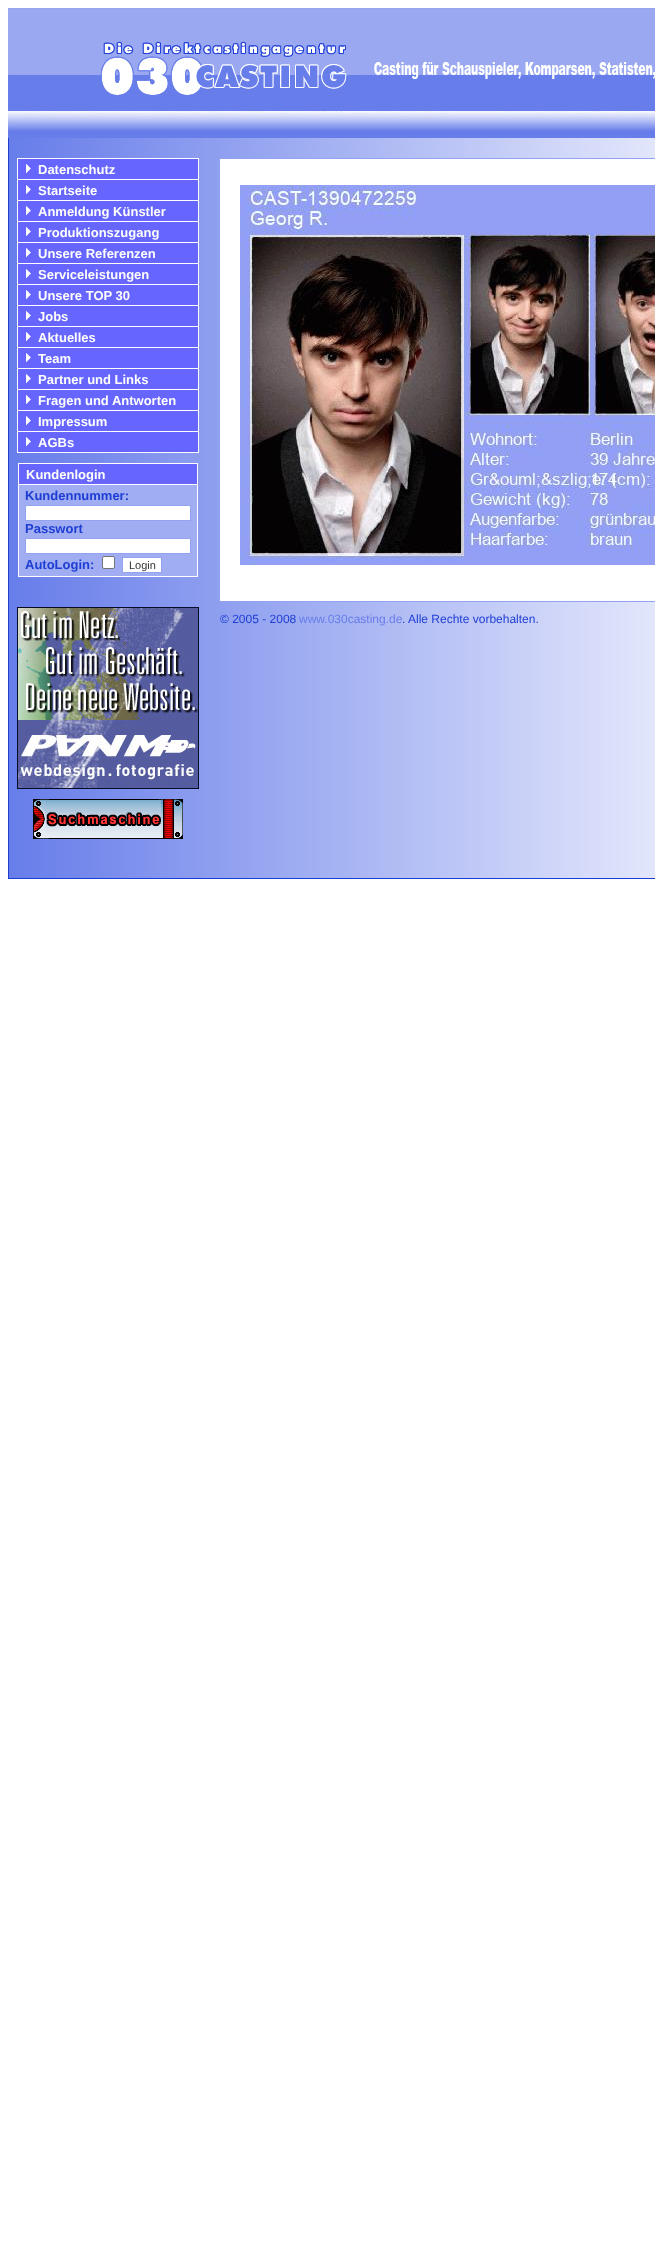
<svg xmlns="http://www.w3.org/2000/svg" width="655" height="2253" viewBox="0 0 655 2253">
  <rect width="100%" height="100%" fill="rgb(255,255,255)"/>
  <image x="8" y="138" width="647" height="741" href="pic1.png"/>
  <image x="8" y="8" width="647" height="130" href="pic2.png"/>
  <rect x="17" y="158" width="182" height="295" fill="rgb(255,255,255)"/>
  <rect x="18" y="159" width="180" height="20" fill="rgb(102,102,255)"/>
  <image x="26" y="164" width="5" height="10" href="pic3.png"/>
  <text x="38" y="174" font-family="Liberation Sans" font-size="13" font-weight="bold" fill="rgb(255,255,255)">Datenschutz</text>
  <rect x="18" y="180" width="180" height="20" fill="rgb(102,102,255)"/>
  <image x="26" y="185" width="5" height="10" href="pic3.png"/>
  <text x="38" y="195" font-family="Liberation Sans" font-size="13" font-weight="bold" fill="rgb(255,255,255)">Startseite</text>
  <rect x="18" y="201" width="180" height="20" fill="rgb(102,102,255)"/>
  <image x="26" y="206" width="5" height="10" href="pic3.png"/>
  <text x="38" y="216" font-family="Liberation Sans" font-size="13" font-weight="bold" fill="rgb(255,255,255)">Anmeldung Künstler</text>
  <rect x="18" y="222" width="180" height="20" fill="rgb(102,102,255)"/>
  <image x="26" y="227" width="5" height="10" href="pic3.png"/>
  <text x="38" y="237" font-family="Liberation Sans" font-size="13" font-weight="bold" fill="rgb(255,255,255)">Produktionszugang</text>
  <rect x="18" y="243" width="180" height="20" fill="rgb(102,102,255)"/>
  <image x="26" y="248" width="5" height="10" href="pic3.png"/>
  <text x="38" y="258" font-family="Liberation Sans" font-size="13" font-weight="bold" fill="rgb(255,255,255)">Unsere Referenzen</text>
  <rect x="18" y="264" width="180" height="20" fill="rgb(102,102,255)"/>
  <image x="26" y="269" width="5" height="10" href="pic3.png"/>
  <text x="38" y="279" font-family="Liberation Sans" font-size="13" font-weight="bold" fill="rgb(255,255,255)">Serviceleistungen</text>
  <rect x="18" y="285" width="180" height="20" fill="rgb(102,102,255)"/>
  <image x="26" y="290" width="5" height="10" href="pic3.png"/>
  <text x="38" y="300" font-family="Liberation Sans" font-size="13" font-weight="bold" fill="rgb(255,255,255)">Unsere TOP 30</text>
  <rect x="18" y="306" width="180" height="20" fill="rgb(102,102,255)"/>
  <image x="26" y="311" width="5" height="10" href="pic3.png"/>
  <text x="38" y="321" font-family="Liberation Sans" font-size="13" font-weight="bold" fill="rgb(255,255,255)">Jobs</text>
  <rect x="18" y="327" width="180" height="20" fill="rgb(102,102,255)"/>
  <image x="26" y="332" width="5" height="10" href="pic3.png"/>
  <text x="38" y="342" font-family="Liberation Sans" font-size="13" font-weight="bold" fill="rgb(255,255,255)">Aktuelles</text>
  <rect x="18" y="348" width="180" height="20" fill="rgb(102,102,255)"/>
  <image x="26" y="353" width="5" height="10" href="pic3.png"/>
  <text x="38" y="363" font-family="Liberation Sans" font-size="13" font-weight="bold" fill="rgb(255,255,255)">Team</text>
  <rect x="18" y="369" width="180" height="20" fill="rgb(102,102,255)"/>
  <image x="26" y="374" width="5" height="10" href="pic3.png"/>
  <text x="38" y="384" font-family="Liberation Sans" font-size="13" font-weight="bold" fill="rgb(255,255,255)">Partner und Links</text>
  <rect x="18" y="390" width="180" height="20" fill="rgb(102,102,255)"/>
  <image x="26" y="395" width="5" height="10" href="pic3.png"/>
  <text x="38" y="405" font-family="Liberation Sans" font-size="13" font-weight="bold" fill="rgb(255,255,255)">Fragen und Antworten</text>
  <rect x="18" y="411" width="180" height="20" fill="rgb(102,102,255)"/>
  <image x="26" y="416" width="5" height="10" href="pic3.png"/>
  <text x="38" y="426" font-family="Liberation Sans" font-size="13" font-weight="bold" fill="rgb(255,255,255)">Impressum</text>
  <rect x="18" y="432" width="180" height="20" fill="rgb(102,102,255)"/>
  <image x="26" y="437" width="5" height="10" href="pic3.png"/>
  <text x="38" y="447" font-family="Liberation Sans" font-size="13" font-weight="bold" fill="rgb(255,255,255)">AGBs</text>
  <rect x="18" y="463" width="180" height="114" fill="rgb(255,255,255)"/>
  <rect x="19" y="464" width="178" height="20" fill="rgb(102,102,255)"/>
  <text x="26" y="479" font-family="Liberation Sans" font-size="13" font-weight="bold" fill="rgb(255,255,255)">Kundenlogin</text>
  <rect x="19" y="485" width="178" height="91" fill="rgb(160,173,242)"/>
  <text x="25" y="500" font-family="Liberation Sans" font-size="13" font-weight="bold" fill="rgb(29,61,211)">Kundennummer:</text>
  <rect x="25.5" y="505.5" width="165" height="15" fill="rgb(255,255,255)" stroke="rgb(148,163,240)"/>
  <text x="25" y="533" font-family="Liberation Sans" font-size="13" font-weight="bold" fill="rgb(29,61,211)">Passwort</text>
  <rect x="25.5" y="538.5" width="165" height="15" fill="rgb(255,255,255)" stroke="rgb(148,163,240)"/>
  <text x="25" y="569" font-family="Liberation Sans" font-size="13" font-weight="bold" fill="rgb(29,61,211)">AutoLogin:</text>
  <rect x="102.5" y="556.5" width="12" height="12" rx="1.5" fill="rgb(255,255,255)" stroke="rgb(118,118,118)"/>
  <rect x="122.5" y="557.5" width="39" height="15" fill="rgb(255,255,255)" stroke="rgb(148,163,240)"/>
  <text x="129" y="569" font-family="Liberation Sans" font-size="11" fill="rgb(51,51,51)">Login</text>
  <image x="17" y="607" width="182" height="182" href="pic4.png"/>
  <image x="33" y="799" width="150" height="40" href="pic5.png"/>
  <rect x="219.5" y="158.5" width="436" height="443" fill="none" stroke="rgb(148,163,240)"/>
  <rect x="220" y="159" width="435" height="442" fill="rgb(255,255,255)"/>
  <image x="240" y="185" width="415" height="380" href="pic6.png"/>
  <text x="220" y="623" font-family="Liberation Sans" font-size="12" fill="rgb(29,61,211)">© 2005 - 2008</text>
  <text x="299" y="623" font-family="Liberation Sans" font-size="12" fill="rgb(103,125,234)">www.030casting.de</text>
  <text x="402" y="623" font-family="Liberation Sans" font-size="12" fill="rgb(29,61,211)">. Alle Rechte vorbehalten.</text>
  <rect x="9" y="878" width="646" height="1" fill="rgb(30,61,211)"/>
</svg>
